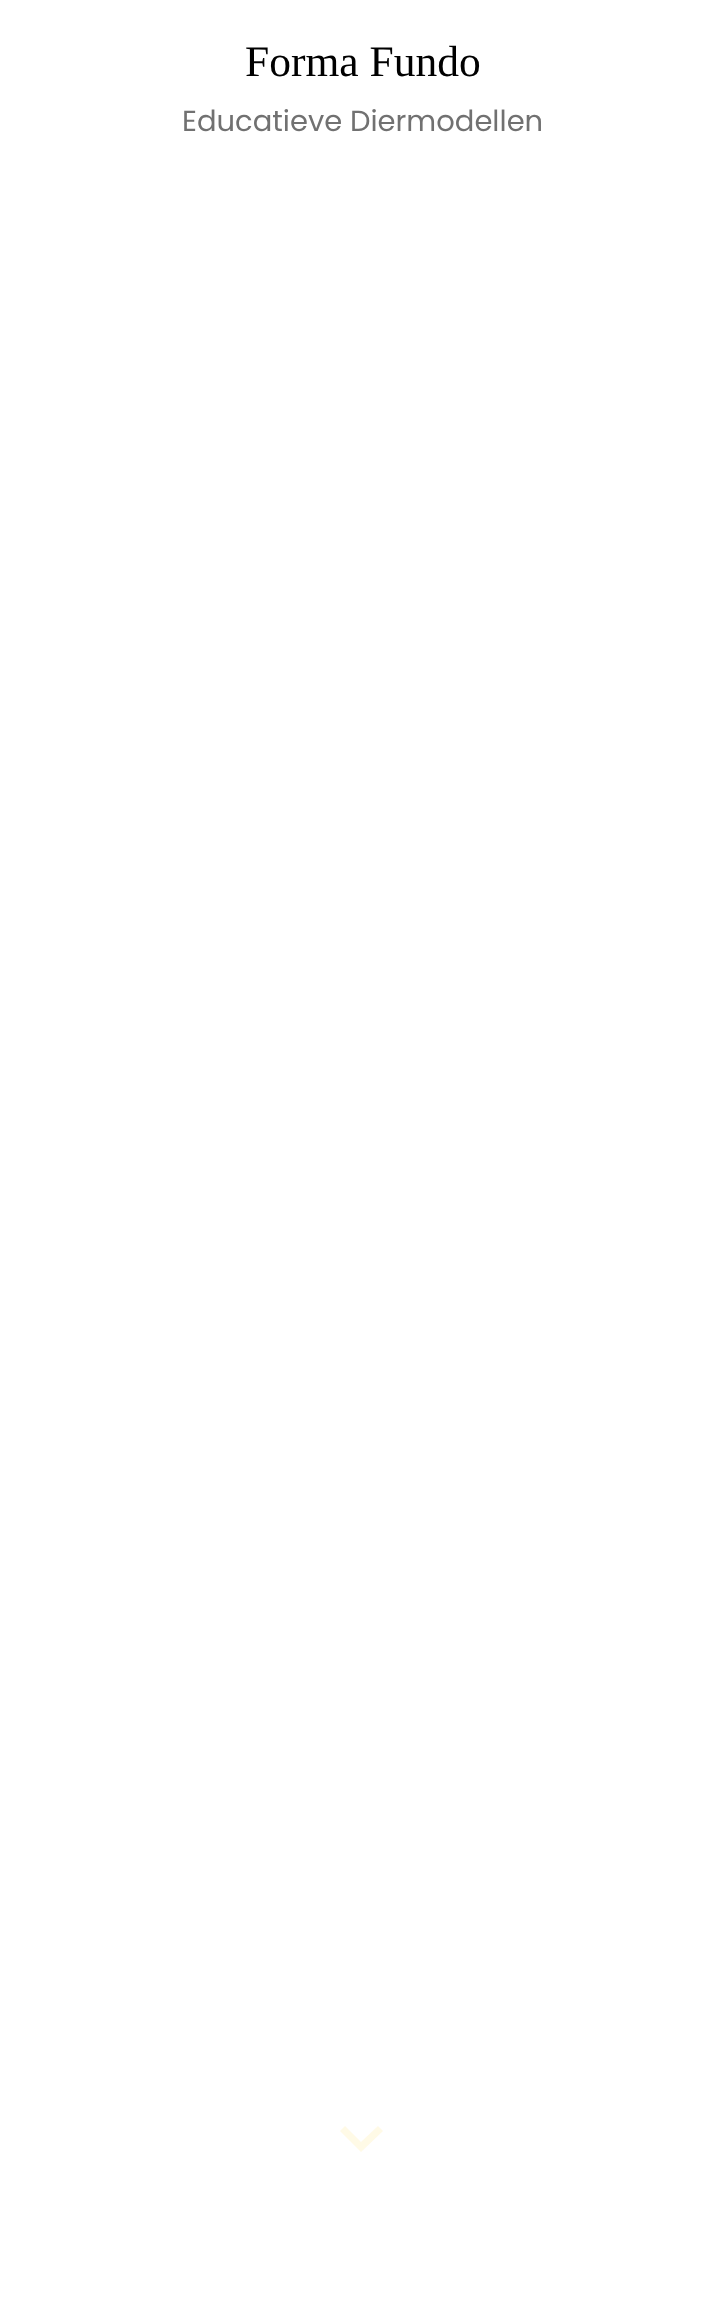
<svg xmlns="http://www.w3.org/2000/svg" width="726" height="2313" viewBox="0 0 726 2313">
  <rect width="100%" height="100%" fill="rgb(255,255,255)"/>
  <text x="245" y="76" font-family="Liberation Serif" font-size="43.5" fill="rgb(0,0,0)">Forma Fundo</text>
  <text x="182" y="131" font-family="Poppins" font-size="29" fill="rgb(113,113,113)">Educatieve Diermodellen</text>
  <path d="M378 2126L361 2142L345 2126L340 2131L361 2152L383 2131Z" fill="rgb(255,250,230)" fill-rule="evenodd"/>
</svg>
